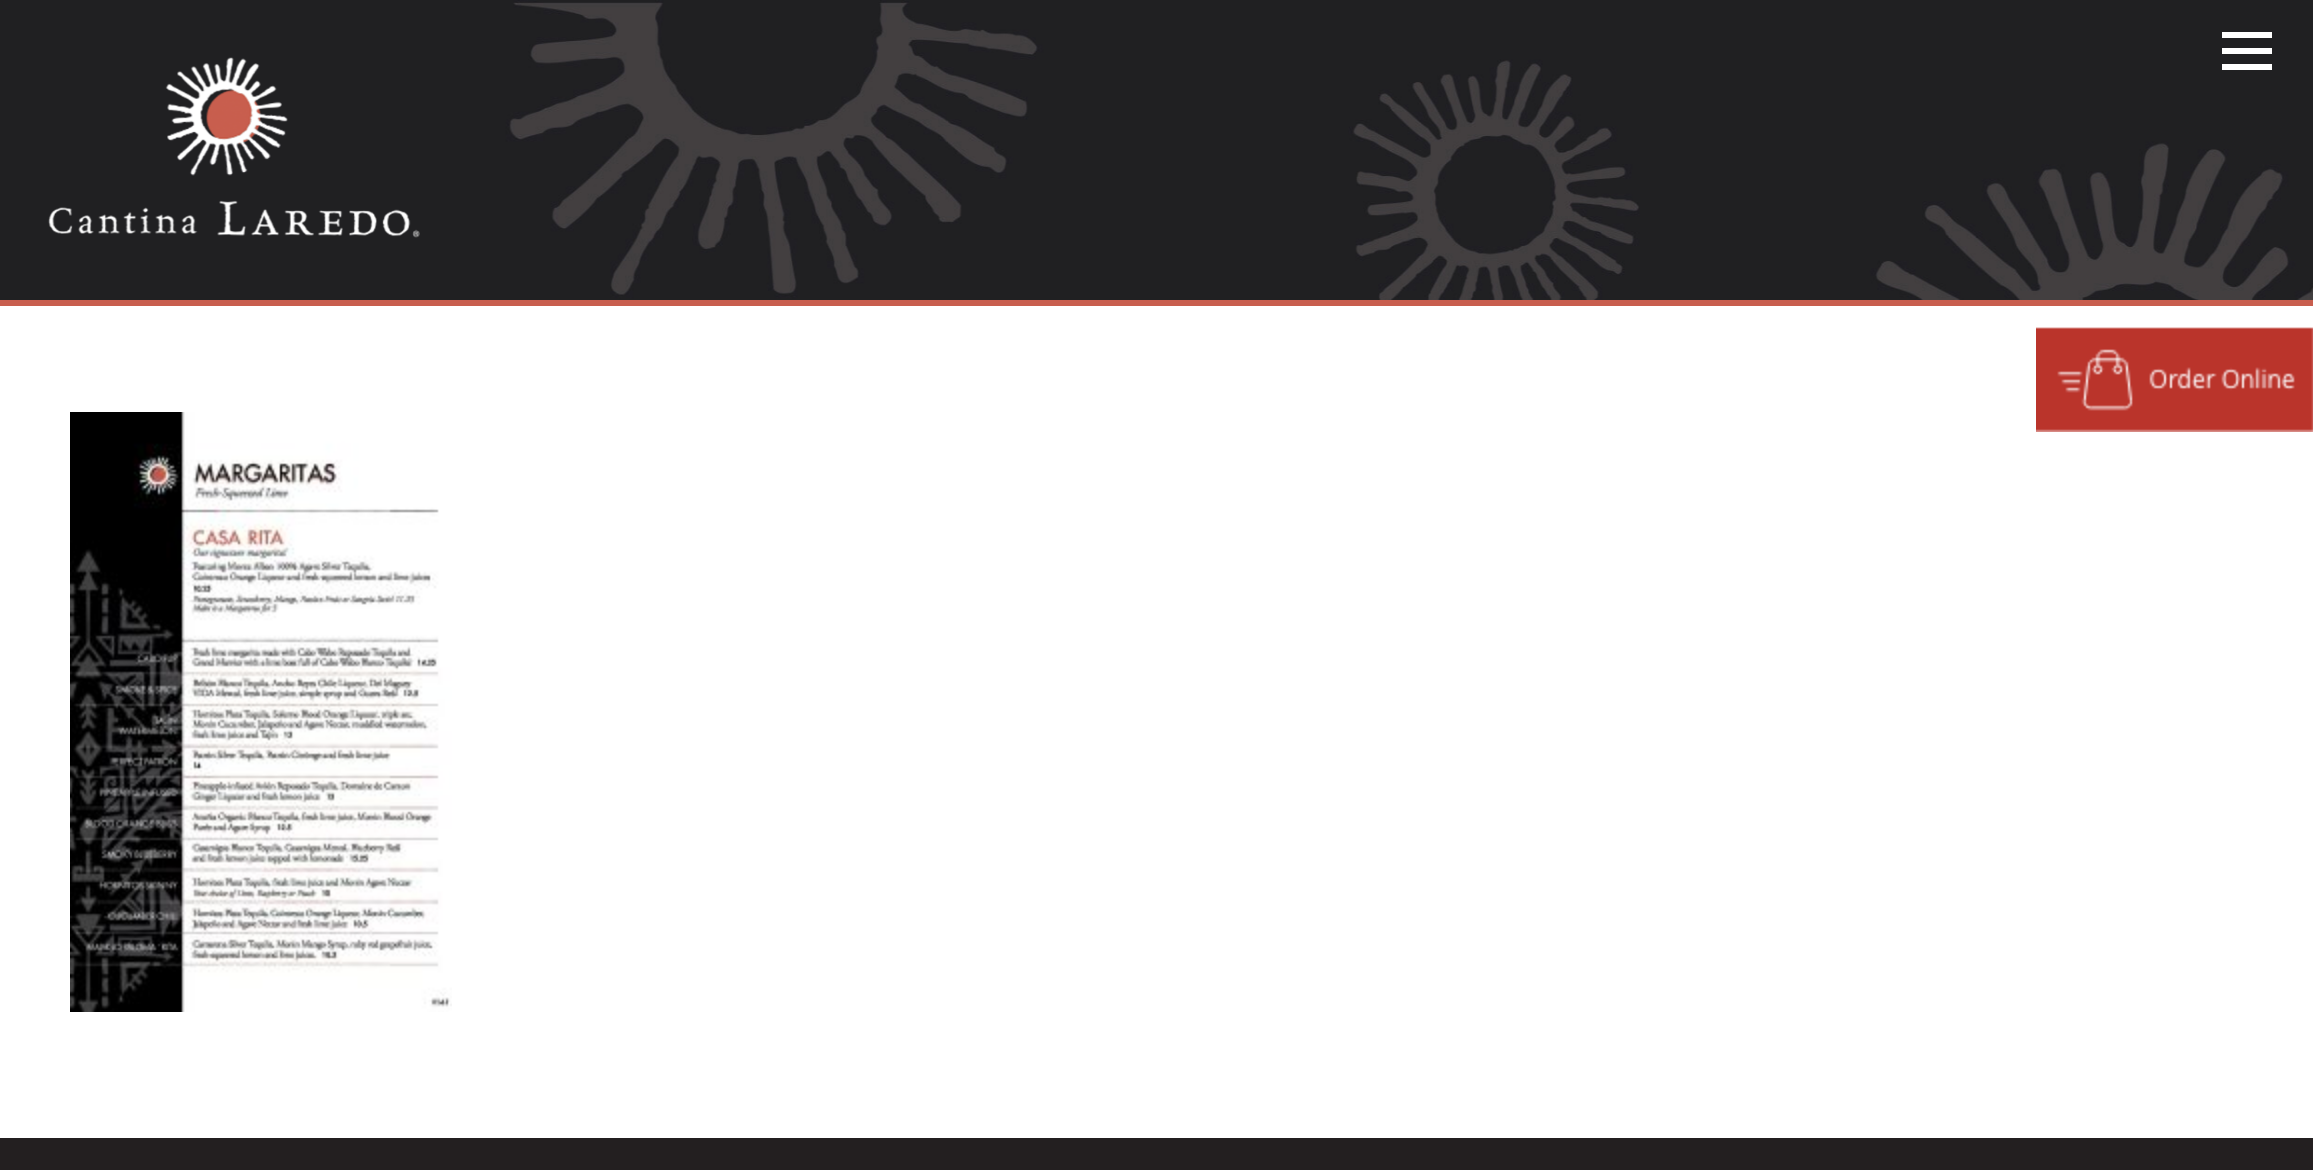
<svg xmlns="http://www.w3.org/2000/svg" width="2313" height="1170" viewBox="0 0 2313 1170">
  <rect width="100%" height="100%" fill="rgb(255,255,255)"/>
  <image x="0" y="0" width="2313" height="300" href="pic1.png"/>
  <rect x="0" y="300" width="2313" height="6" fill="rgb(200,94,78)"/>
  <rect x="2222" y="48" width="50" height="6" fill="rgb(255,255,255)"/>
  <rect x="2222" y="32" width="50" height="6" fill="rgb(255,255,255)"/>
  <rect x="2222" y="64" width="50" height="6" fill="rgb(255,255,255)"/>
  <image x="48" y="57" width="372" height="181" href="pic2.png"/>
  <image x="70" y="412" width="382" height="600" href="pic3.png"/>
  <image x="2036" y="327" width="277" height="105" href="pic4.png"/>
  <rect x="0" y="1138" width="2313" height="32" fill="rgb(35,31,32)"/>
</svg>
